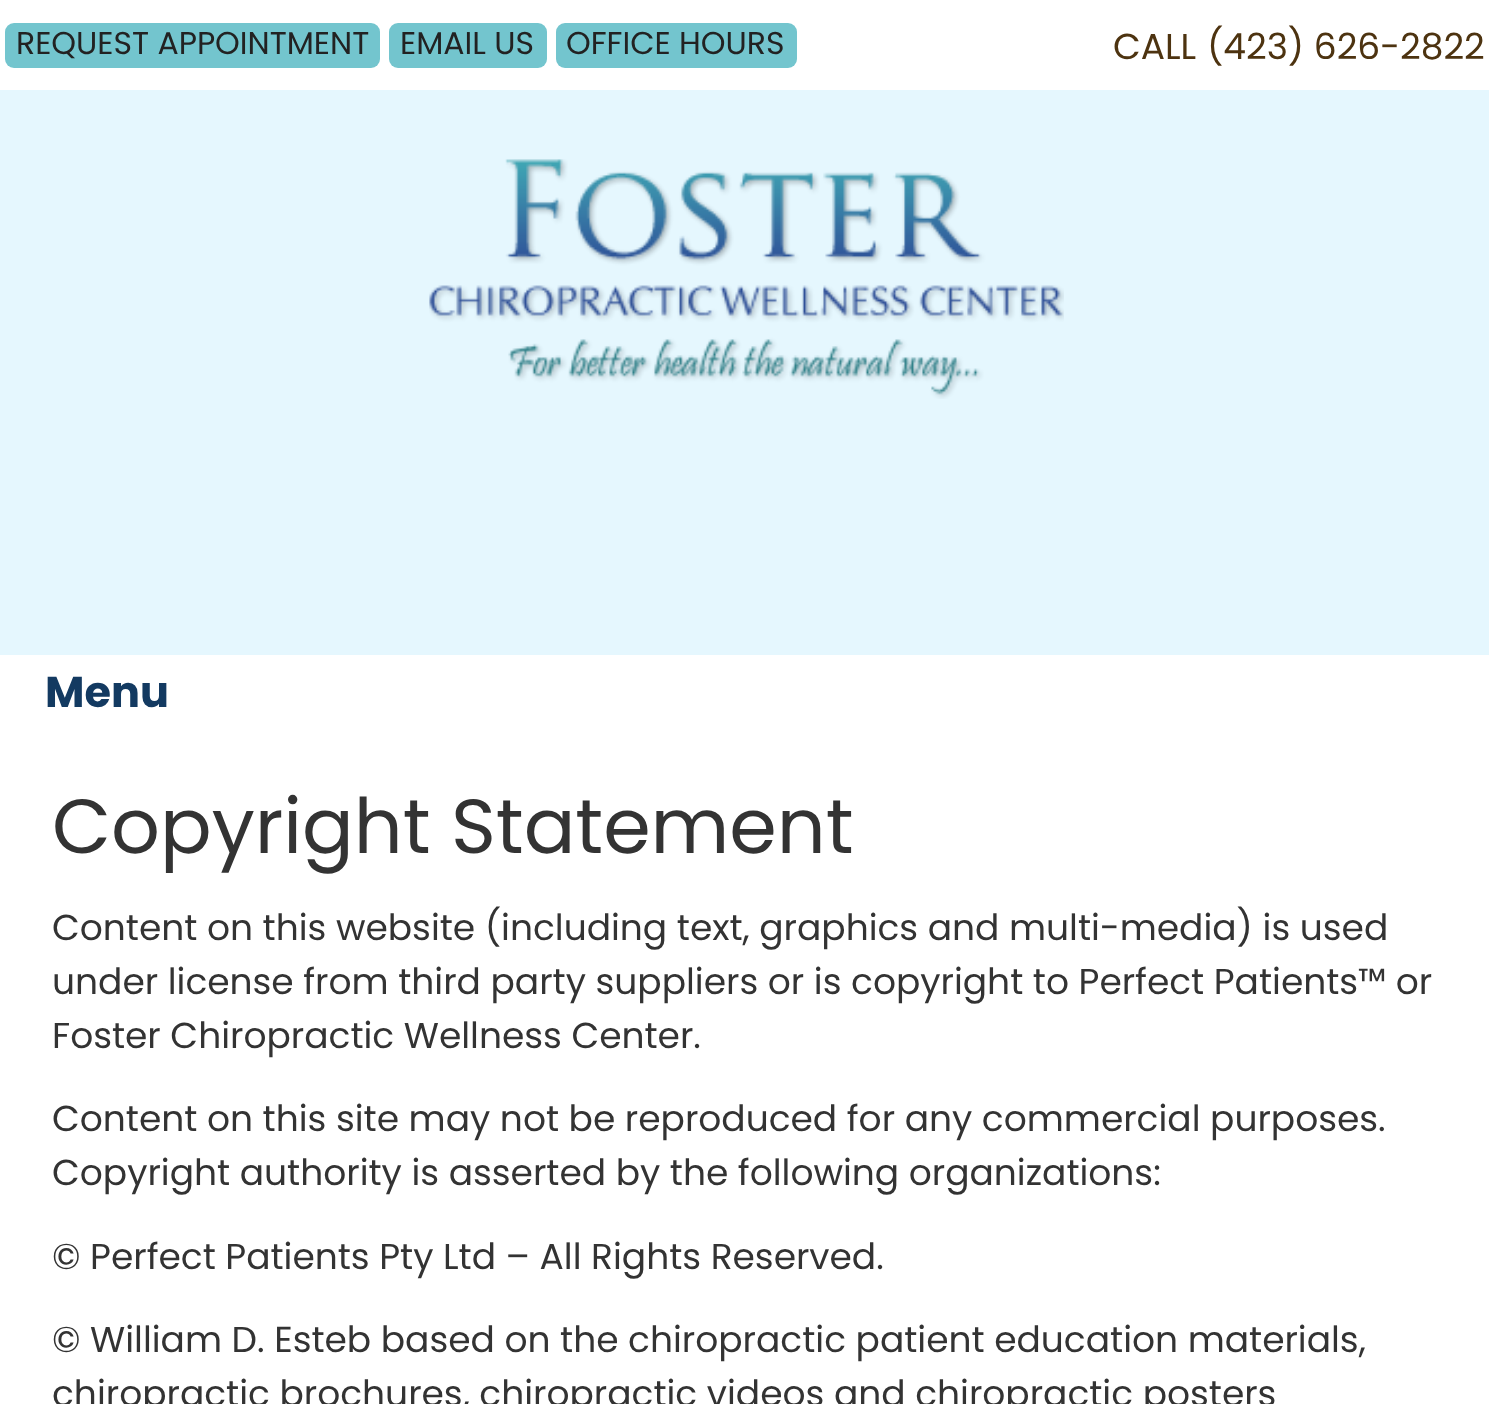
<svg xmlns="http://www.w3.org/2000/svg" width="1489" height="1404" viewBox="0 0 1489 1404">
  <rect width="100%" height="100%" fill="rgb(255,255,255)"/>
  <rect x="5" y="23" width="375" height="45" rx="9" fill="rgb(115,197,206)"/>
  <text x="16" y="54" font-family="Poppins" font-size="31.5" fill="rgb(34,34,34)">REQUEST APPOINTMENT</text>
  <rect x="389" y="23" width="158" height="45" rx="9" fill="rgb(115,197,206)"/>
  <text x="400" y="54" font-family="Poppins" font-size="31.5" fill="rgb(34,34,34)">EMAIL US</text>
  <rect x="556" y="23" width="241" height="45" rx="9" fill="rgb(115,197,206)"/>
  <text x="566" y="54" font-family="Poppins" font-size="31.5" fill="rgb(34,34,34)">OFFICE HOURS</text>
  <g font-family="Poppins" font-size="36" fill="rgb(77,51,16)">
    <text x="1113" y="59">CALL</text>
    <text x="1207" y="59">(423) 626-2822</text>
  </g>
  <rect x="0" y="90" width="1489" height="565" fill="rgb(229,247,254)"/>
  <image x="429" y="159" width="635" height="240" href="pic1.png"/>
  <text x="45" y="707" font-family="Poppins" font-size="43" font-weight="bold" fill="rgb(19,58,97)">Menu</text>
  <text x="52" y="853" font-family="Poppins" font-size="76.5" fill="rgb(51,51,51)">Copyright Statement</text>
  <g font-family="Poppins" font-size="36" fill="rgb(51,51,51)">
    <text>
      <tspan x="52" y="940">Content on this website (including text, graphics and multi-media) is used</tspan>
      <tspan x="52" y="994">under license from third party suppliers or is copyright to Perfect Patients™ or</tspan>
      <tspan x="52" y="1048">Foster Chiropractic Wellness Center.</tspan>
    </text>
    <text>
      <tspan x="52" y="1131">Content on this site may not be reproduced for any commercial purposes.</tspan>
      <tspan x="52" y="1185">Copyright authority is asserted by the following organizations:</tspan>
    </text>
    <text x="52" y="1269">© Perfect Patients Pty Ltd – All Rights Reserved.</text>
    <text>
      <tspan x="52" y="1352">© William D. Esteb based on the chiropractic patient education materials,</tspan>
      <tspan x="52" y="1406">chiropractic brochures, chiropractic videos and chiropractic posters</tspan>
    </text>
  </g>
</svg>
